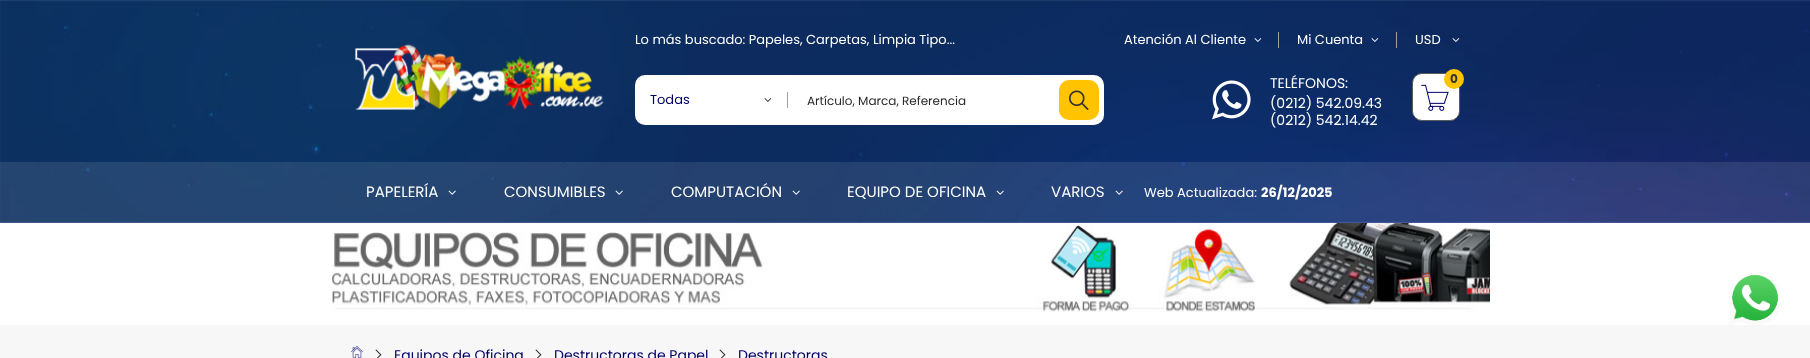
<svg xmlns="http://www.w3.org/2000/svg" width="1810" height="358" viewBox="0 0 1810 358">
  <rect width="100%" height="100%" fill="rgb(255,255,255)"/>
  <image x="0" y="0" width="1810" height="223" href="pic1.png"/>
  <image x="355" y="44" width="249" height="66" href="pic2.png"/>
  <g font-family="Poppins" font-size="13" fill="rgb(255,255,255)">
    <text x="635" y="44">Lo más buscado: Papeles, Carpetas, Limpia Tipo...</text>
    <text x="1124" y="44">Atención Al Cliente</text>
  </g>
  <image x="1254" y="38" width="8" height="4" href="pic3.png"/>
  <rect x="1278" y="32" width="1" height="16" fill="rgb(161,161,161)"/>
  <text x="1297" y="44" font-family="Poppins" font-size="13" fill="rgb(255,255,255)">Mi Cuenta</text>
  <image x="1371" y="38" width="8" height="4" href="pic4.png"/>
  <rect x="1396" y="32" width="1" height="16" fill="rgb(161,161,161)"/>
  <text x="1415" y="44" font-family="Poppins" font-size="13" fill="rgb(255,255,255)">USD</text>
  <image x="1452" y="38" width="8" height="4" href="pic5.png"/>
  <rect x="635" y="75" width="469" height="50" rx="10" fill="rgb(255,255,255)"/>
  <text x="650" y="104" font-family="Poppins" font-size="13" fill="rgb(0,0,102)">Todas</text>
  <image x="764" y="98" width="8" height="4" href="pic6.png"/>
  <rect x="787" y="92" width="1" height="16" fill="rgb(161,161,161)"/>
  <text x="807" y="105" font-family="Poppins" font-size="12" fill="rgb(41,41,41)">Artículo, Marca, Referencia</text>
  <rect x="1059" y="80" width="40" height="40" rx="10" fill="rgb(255,195,0)"/>
  <image x="1069" y="90" width="20" height="20" href="pic7.png"/>
  <image x="1212" y="80" width="39" height="40" href="pic8.png"/>
  <g font-family="Poppins" font-size="14" fill="rgb(255,255,255)">
    <text>
      <tspan x="1270" y="88">TELÉFONOS:</tspan>
      <tspan x="1270" y="108">(0212) 542.09.43</tspan>
      <tspan x="1270" y="125">(0212) 542.14.42</tspan>
    </text>
  </g>
  <rect x="1412.5" y="73.5" width="47" height="47" rx="9.5" fill="rgb(255,255,255)" stroke="rgb(92,92,92)"/>
  <image x="1421" y="84" width="28" height="27" href="pic9.png"/>
  <circle cx="1454" cy="79" r="10" fill="rgb(255,195,0)"/>
  <text x="1450" y="83" font-family="Poppins" font-size="12" font-weight="bold" fill="rgb(51,51,51)">0</text>
  <rect x="0" y="162" width="1810" height="61" fill="rgba(255,255,255,0.1)"/>
  <text x="366" y="197" font-family="Poppins" font-size="15" fill="rgb(255,255,255)">PAPELERÍA</text>
  <image x="448" y="190" width="8" height="5" href="pic10.png"/>
  <text x="504" y="197" font-family="Poppins" font-size="15" fill="rgb(255,255,255)">CONSUMIBLES</text>
  <image x="615" y="190" width="8" height="5" href="pic11.png"/>
  <text x="671" y="197" font-family="Poppins" font-size="15" fill="rgb(255,255,255)">COMPUTACIÓN</text>
  <image x="792" y="190" width="8" height="5" href="pic12.png"/>
  <text x="847" y="197" font-family="Poppins" font-size="15" fill="rgb(255,255,255)">EQUIPO DE OFICINA</text>
  <image x="996" y="190" width="8" height="5" href="pic13.png"/>
  <text x="1051" y="197" font-family="Poppins" font-size="15" fill="rgb(255,255,255)">VARIOS</text>
  <image x="1115" y="190" width="8" height="5" href="pic14.png"/>
  <text x="1144" y="197" font-family="Poppins" font-size="13" fill="rgb(255,255,255)">Web Actualizada:</text>
  <text x="1261" y="197" font-family="Poppins" font-size="13" font-weight="bold" fill="rgb(255,255,255)">26/12/2025</text>
  <image x="332" y="223" width="1158" height="89" href="pic15.png"/>
  <image x="1728" y="274" width="54" height="51" href="pic16.png"/>
  <rect x="0" y="325" width="1810" height="33" fill="rgb(247,247,247)"/>
  <image x="351" y="346" width="12" height="12" href="pic17.png"/>
  <image x="375" y="349" width="7" height="9" href="pic18.png"/>
  <text x="394" y="360" font-family="Poppins" font-size="14" fill="rgb(0,0,102)">Equipos de Oficina</text>
  <image x="535" y="349" width="7" height="9" href="pic18.png"/>
  <text x="554" y="360" font-family="Poppins" font-size="14" fill="rgb(0,0,102)">Destructoras de Papel</text>
  <image x="719" y="349" width="7" height="9" href="pic18.png"/>
  <text x="738" y="360" font-family="Poppins" font-size="14" fill="rgb(0,0,102)">Destructoras</text>
</svg>
